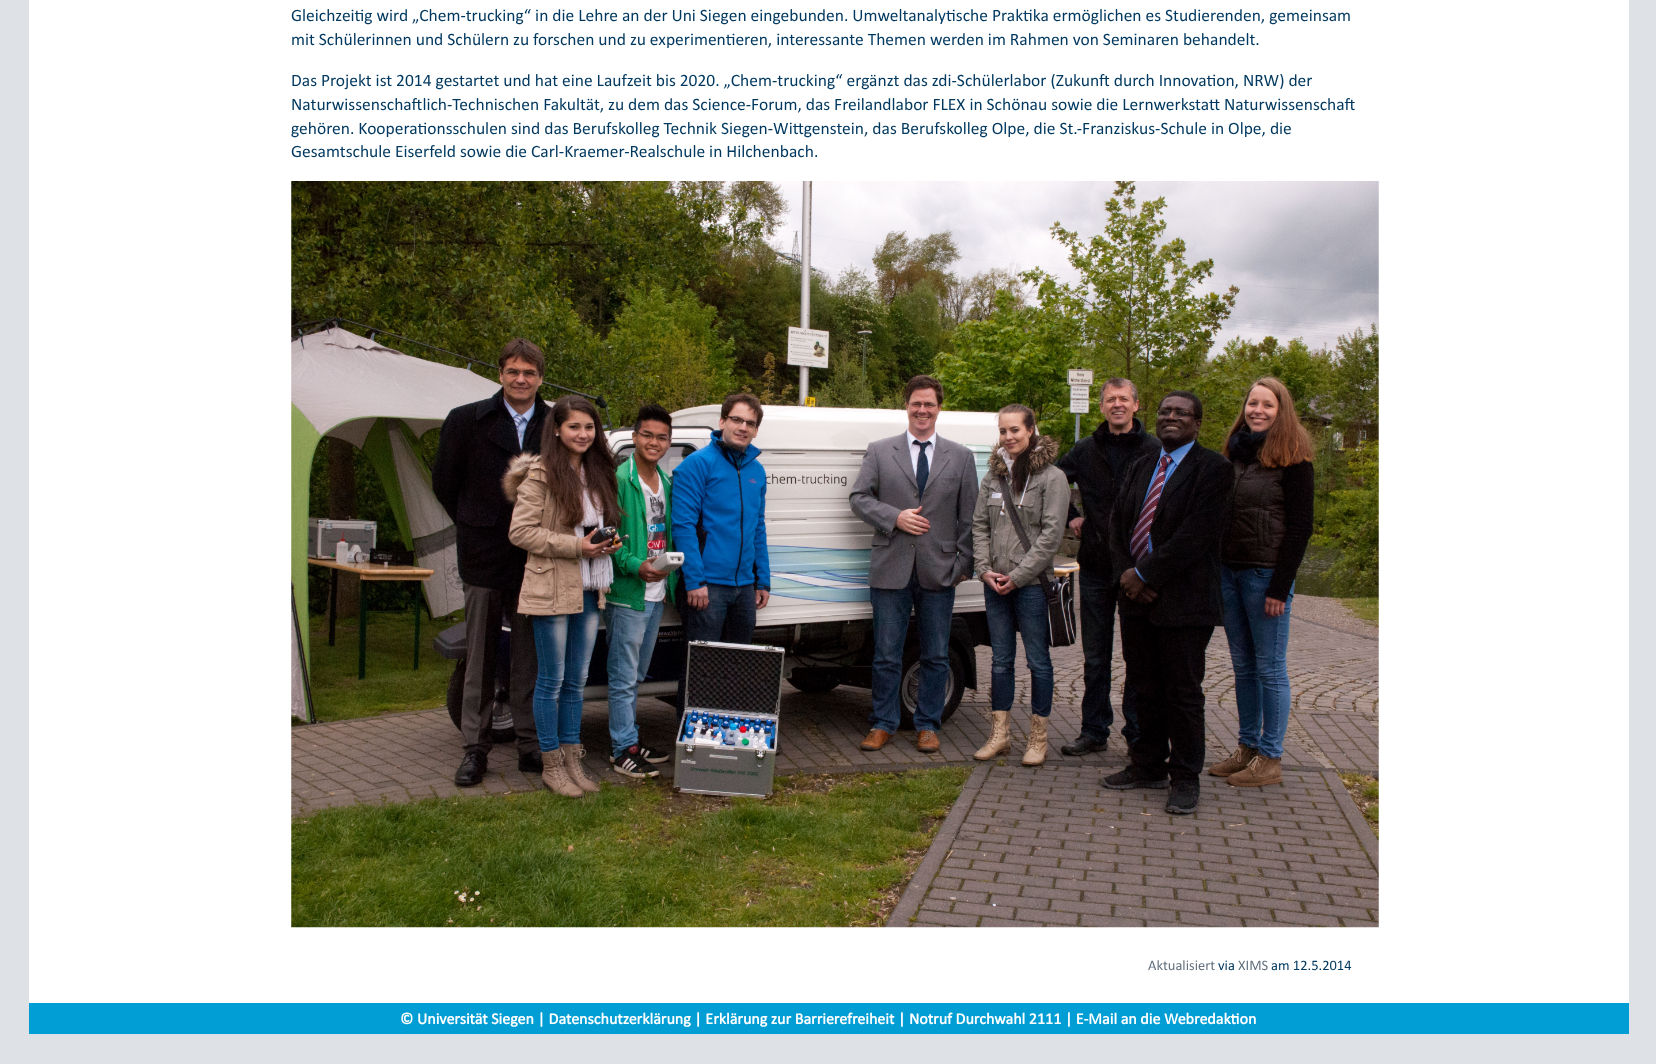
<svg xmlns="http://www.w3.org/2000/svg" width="1656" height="1064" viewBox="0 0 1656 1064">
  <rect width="100%" height="100%" fill="rgb(222,226,230)"/>
  <rect x="29" y="0" width="1600" height="1003" fill="rgb(255,255,255)"/>
  <g font-family="Calibri" font-size="17.5" fill="rgb(0,56,95)">
    <text>
      <tspan x="291" y="21">Gleichzeitig wird „Chem-trucking“ in die Lehre an der Uni Siegen eingebunden. Umweltanalytische Praktika ermöglichen es Studierenden, gemeinsam</tspan>
      <tspan x="291" y="45">mit Schülerinnen und Schülern zu forschen und zu experimentieren, interessante Themen werden im Rahmen von Seminaren behandelt.</tspan>
    </text>
    <text>
      <tspan x="291" y="86">Das Projekt ist 2014 gestartet und hat eine Laufzeit bis 2020. „Chem-trucking“ ergänzt das zdi-Schülerlabor (Zukunft durch Innovation, NRW) der</tspan>
      <tspan x="291" y="110">Naturwissenschaftlich-Technischen Fakultät, zu dem das Science-Forum, das Freilandlabor FLEX in Schönau sowie die Lernwerkstatt Naturwissenschaft</tspan>
      <tspan x="291" y="134">gehören. Kooperationsschulen sind das Berufskolleg Technik Siegen-Wittgenstein, das Berufskolleg Olpe, die St.-Franziskus-Schule in Olpe, die</tspan>
      <tspan x="291" y="157">Gesamtschule Eiserfeld sowie die Carl-Kraemer-Realschule in Hilchenbach.</tspan>
    </text>
  </g>
  <image x="291" y="181" width="1088" height="747" href="pic1.png"/>
  <text x="1148" y="970" font-family="Calibri" font-size="14.5" fill="rgb(100,114,127)">Aktualisiert</text>
  <text x="1218" y="970" font-family="Calibri" font-size="14.5" fill="rgb(0,56,95)">via</text>
  <text x="1238" y="970" font-family="Calibri" font-size="14.5" fill="rgb(100,114,127)">XIMS</text>
  <text x="1271" y="970" font-family="Calibri" font-size="14.5" fill="rgb(0,56,95)">am 12.5.2014</text>
  <rect x="29" y="1003" width="1600" height="31" fill="rgb(0,158,212)"/>
  <text x="400" y="1024" font-family="Calibri" font-size="16" font-weight="bold" fill="rgb(255,255,255)">© Universität Siegen | Datenschutzerklärung | Erklärung zur Barrierefreiheit | Notruf Durchwahl 2111 | E-Mail an die Webredaktion</text>
</svg>
